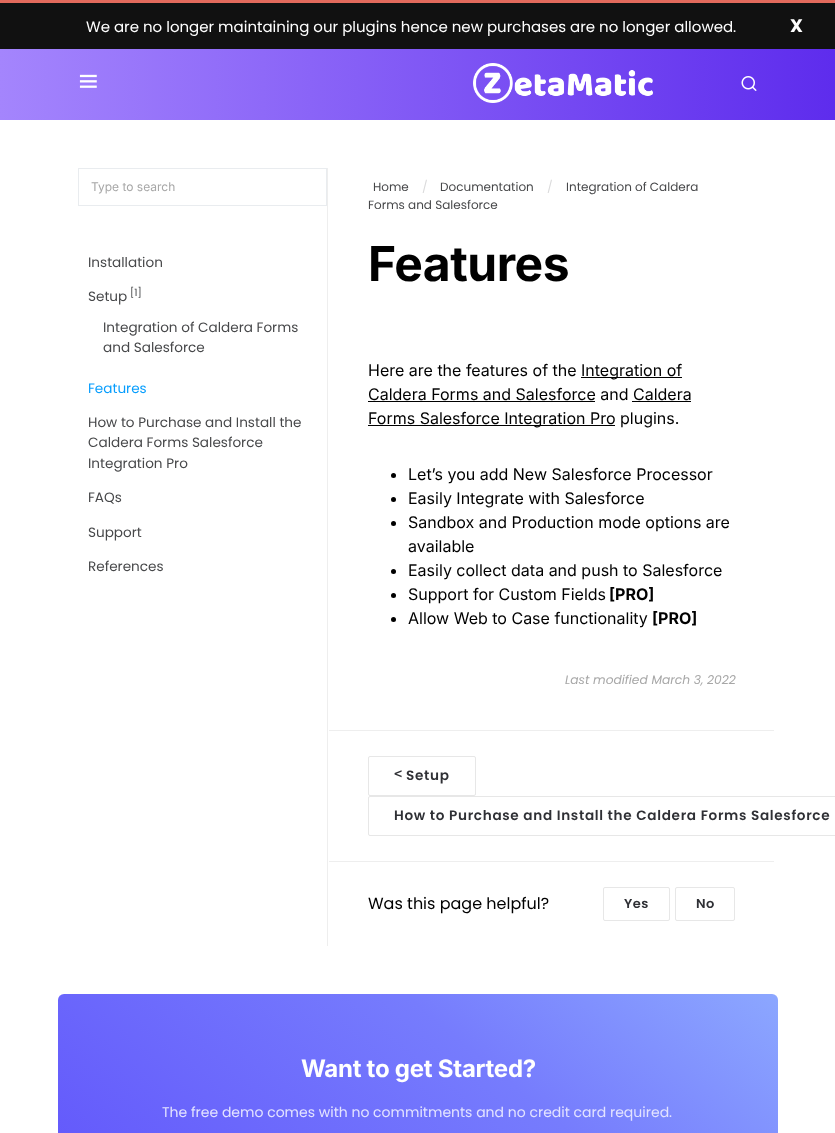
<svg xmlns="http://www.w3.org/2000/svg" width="835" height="1133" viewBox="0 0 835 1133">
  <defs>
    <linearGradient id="g1" gradientUnits="userSpaceOnUse" x1="835" y1="83" x2="0" y2="83"><stop offset="0" stop-color="rgb(94,44,237)"/><stop offset="1" stop-color="rgb(164,133,253)"/></linearGradient>
    <linearGradient id="g2" gradientUnits="userSpaceOnUse" x1="204" y1="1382" x2="632" y2="872"><stop offset="0" stop-color="rgb(95,81,251)"/><stop offset="0.64" stop-color="rgb(118,124,253)"/><stop offset="1" stop-color="rgb(140,167,255)"/></linearGradient>
  </defs>
  <rect width="100%" height="100%" fill="rgb(255,255,255)"/>
  <rect x="0" y="3" width="835" height="46" fill="rgb(17,17,17)"/>
  <rect x="0" y="0" width="835" height="3" fill="rgb(226,106,92)"/>
  <text x="86" y="32" font-family="Poppins" font-size="15" fill="rgb(255,255,255)">We are no longer maintaining our plugins hence new purchases are no longer allowed.</text>
  <text x="790" y="32" font-family="Poppins" font-size="18" font-weight="bold" fill="rgb(255,255,255)">X</text>
  <rect x="0" y="49" width="835" height="71" fill="url(#g1)"/>
  <image x="79" y="74" width="18" height="14" href="pic1.png"/>
  <image x="473" y="63" width="180" height="40" href="pic2.png"/>
  <image x="741" y="76" width="16" height="15" href="pic3.png"/>
  <rect x="327" y="168" width="1" height="778" fill="rgb(238,238,238)"/>
  <rect x="78.5" y="168.5" width="248" height="37" fill="none" stroke="rgb(233,236,239)"/>
  <text x="91" y="191" font-family="Inter" font-size="12" fill="rgb(167,167,167)">Type to search</text>
  <g font-family="Poppins" font-size="13.6" fill="rgb(71,72,74)">
    <text x="88" y="267">Installation</text>
    <text x="88" y="301">Setup</text>
  </g>
  <text x="130" y="296" font-family="Poppins" font-size="10" fill="rgb(71,72,74)">[1]</text>
  <g font-family="Poppins" font-size="13.6" fill="rgb(71,72,74)">
    <text>
      <tspan x="103" y="332">Integration of Caldera Forms</tspan>
      <tspan x="103" y="352">and Salesforce</tspan>
    </text>
  </g>
  <text x="88" y="393" font-family="Poppins" font-size="13.6" fill="rgb(6,157,253)">Features</text>
  <g font-family="Poppins" font-size="13.6" fill="rgb(71,72,74)">
    <text>
      <tspan x="88" y="427">How to Purchase and Install the</tspan>
      <tspan x="88" y="447">Caldera Forms Salesforce</tspan>
      <tspan x="88" y="468">Integration Pro</tspan>
    </text>
    <text x="88" y="502">FAQs</text>
    <text x="88" y="537">Support</text>
    <text x="88" y="571">References</text>
  </g>
  <text x="373" y="191" font-family="Poppins" font-size="12" fill="rgb(71,72,74)">Home</text>
  <text x="422" y="191" font-family="Poppins" font-size="12" fill="rgb(218,218,219)">/</text>
  <text x="440" y="191" font-family="Poppins" font-size="12" fill="rgb(71,72,74)">Documentation</text>
  <text x="547" y="191" font-family="Poppins" font-size="12" fill="rgb(218,218,219)">/</text>
  <g font-family="Poppins" font-size="12" fill="rgb(71,72,74)">
    <text x="566" y="191">Integration of Caldera</text>
    <text x="368" y="209">Forms and Salesforce</text>
  </g>
  <text x="368" y="281" font-family="Inter" font-size="48" font-weight="bold" letter-spacing="-0.5" fill="rgb(0,0,0)">Features</text>
  <text x="368" y="376" font-family="Inter" font-size="16" fill="rgb(0,0,0)">Here are the features of the</text>
  <rect x="581" y="377" width="101" height="1" fill="rgb(0,0,0)"/>
  <g font-family="Inter" font-size="16" fill="rgb(0,0,0)">
    <text x="581" y="376">Integration of</text>
    <text x="368" y="400">Caldera Forms and Salesforce and Caldera</text>
  </g>
  <rect x="368" y="401" width="227" height="1" fill="rgb(0,0,0)"/>
  <rect x="368" y="425" width="247" height="1" fill="rgb(0,0,0)"/>
  <text x="368" y="424" font-family="Inter" font-size="16" fill="rgb(0,0,0)">Forms Salesforce Integration Pro plugins.</text>
  <rect x="632" y="401" width="59" height="1" fill="rgb(0,0,0)"/>
  <circle cx="393.5" cy="475.5" r="2.5" fill="rgb(0,0,0)"/>
  <text x="408" y="480" font-family="Inter" font-size="16" fill="rgb(0,0,0)">Let’s you add New Salesforce Processor</text>
  <circle cx="393.5" cy="499.5" r="2.5" fill="rgb(0,0,0)"/>
  <text x="408" y="504" font-family="Inter" font-size="16" fill="rgb(0,0,0)">Easily Integrate with Salesforce</text>
  <circle cx="393.5" cy="523.5" r="2.5" fill="rgb(0,0,0)"/>
  <g font-family="Inter" font-size="16" fill="rgb(0,0,0)">
    <text>
      <tspan x="408" y="528">Sandbox and Production mode options are</tspan>
      <tspan x="408" y="552">available</tspan>
    </text>
  </g>
  <circle cx="393.5" cy="571.5" r="2.5" fill="rgb(0,0,0)"/>
  <text x="408" y="576" font-family="Inter" font-size="16" fill="rgb(0,0,0)">Easily collect data and push to Salesforce</text>
  <circle cx="393.5" cy="595.5" r="2.5" fill="rgb(0,0,0)"/>
  <text x="408" y="600" font-family="Inter" font-size="16" fill="rgb(0,0,0)">Support for Custom Fields</text>
  <text x="609" y="600" font-family="Inter" font-size="16" font-weight="bold" fill="rgb(0,0,0)">[PRO]</text>
  <circle cx="393.5" cy="619.5" r="2.5" fill="rgb(0,0,0)"/>
  <text x="408" y="624" font-family="Inter" font-size="16" fill="rgb(0,0,0)">Allow Web to Case functionality</text>
  <text x="652" y="624" font-family="Inter" font-size="16" font-weight="bold" fill="rgb(0,0,0)">[PRO]</text>
  <text x="565" y="684" font-family="Poppins" font-size="12.25" font-style="italic" fill="rgb(167,167,167)">Last modified March 3, 2022</text>
  <rect x="329" y="730" width="445" height="1" fill="rgb(238,238,238)"/>
  <rect x="368.5" y="756.5" width="107" height="39" rx="1.5" fill="none" stroke="rgb(231,231,231)"/>
  <text x="394" y="778" font-family="DejaVu Sans Mono" font-size="13.6" font-weight="bold" letter-spacing="0.68" fill="rgb(47,48,53)">&lt;</text>
  <text x="406" y="780" font-family="Poppins" font-size="13.6" font-weight="600" letter-spacing="0.68" fill="rgb(47,48,53)">Setup</text>
  <rect x="368.5" y="796.5" width="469" height="39" rx="1.5" fill="none" stroke="rgb(231,231,231)"/>
  <text x="394" y="820" font-family="Poppins" font-size="13.6" font-weight="600" letter-spacing="0.68" fill="rgb(47,48,53)">How to Purchase and Install the Caldera Forms Salesforce</text>
  <rect x="329" y="861" width="445" height="1" fill="rgb(238,238,238)"/>
  <text x="368" y="909" font-family="Poppins" font-size="16" fill="rgb(0,0,0)">Was this page helpful?</text>
  <rect x="603.5" y="887.5" width="66" height="33" rx="1.5" fill="none" stroke="rgb(231,231,231)"/>
  <text x="624" y="908" font-family="Poppins" font-size="13" font-weight="600" letter-spacing="0.5" fill="rgb(47,48,53)">Yes</text>
  <rect x="675.5" y="887.5" width="59" height="33" rx="1.5" fill="none" stroke="rgb(231,231,231)"/>
  <text x="696" y="908" font-family="Poppins" font-size="13" font-weight="600" letter-spacing="0.5" fill="rgb(47,48,53)">No</text>
  <rect x="58" y="994" width="720" height="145" rx="6" fill="url(#g2)"/>
  <text x="301" y="1077" font-family="Inter" font-size="24" font-weight="bold" letter-spacing="-0.25" fill="rgb(255,255,255)">Want to get Started?</text>
  <text x="162" y="1117" font-family="Poppins" font-size="14" fill="rgb(227,227,255)">The free demo comes with no commitments and no credit card required.</text>
</svg>
